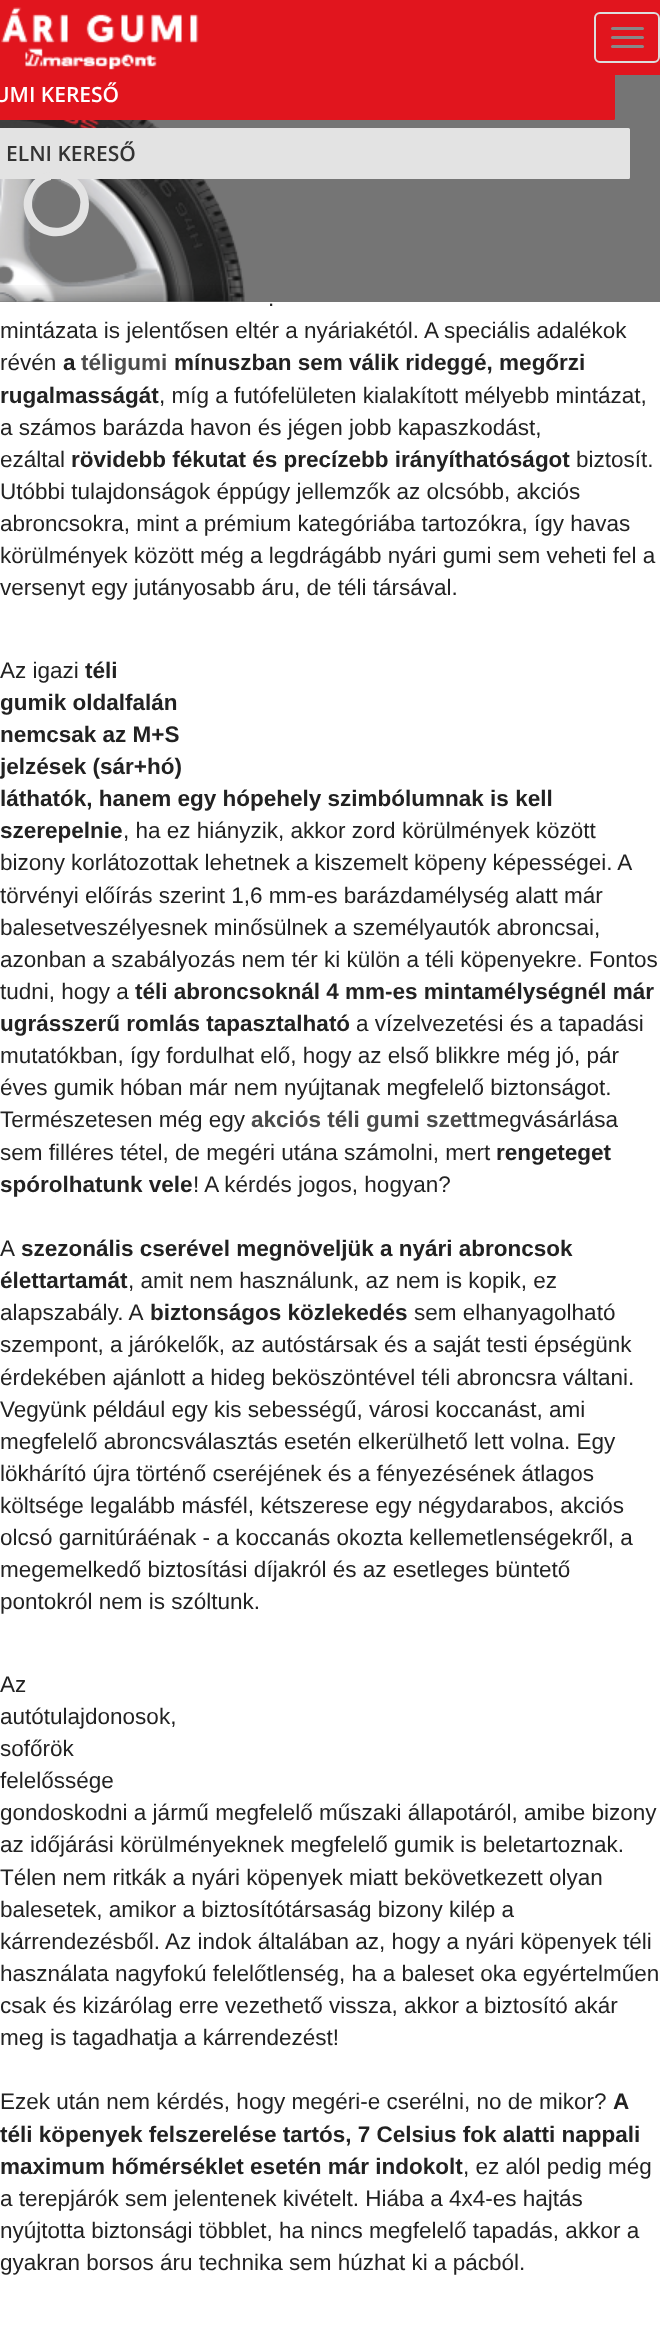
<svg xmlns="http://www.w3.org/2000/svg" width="660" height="2341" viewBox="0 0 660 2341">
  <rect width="100%" height="100%" fill="rgb(255,255,255)"/>
  <rect x="0" y="75" width="660" height="227" fill="rgb(117,117,117)"/>
  <rect x="-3" y="70" width="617" height="49" rx="0.5" fill="rgb(225,21,30)" stroke="rgb(225,21,30)" stroke-width="2"/>
  <rect x="0" y="0" width="660" height="75" fill="rgb(225,21,30)"/>
  <image x="1" y="7" width="198" height="63" href="pic1.png"/>
  <rect x="595" y="13" width="64" height="49" rx="5" fill="none" stroke="rgb(221,221,221)" stroke-width="2"/>
  <rect x="611" y="27" width="33" height="3" rx="1.5" fill="rgb(136,136,136)"/>
  <rect x="611" y="36" width="33" height="3" rx="1.5" fill="rgb(136,136,136)"/>
  <rect x="611" y="45" width="33" height="3" rx="1.5" fill="rgb(136,136,136)"/>
  <text x="-6" y="102" font-family="Open Sans" font-size="21" font-weight="600" fill="rgb(255,255,255)">UMI KERESŐ</text>
  <image x="0" y="120" width="245" height="182" href="pic2.png"/>
  <rect x="-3" y="129" width="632" height="49" rx="0.5" fill="rgb(227,227,227)" stroke="rgb(227,227,227)" stroke-width="2"/>
  <text x="6" y="161" font-family="Open Sans" font-size="21" font-weight="600" fill="rgb(51,51,51)">ELNI KERESŐ</text>
  <path d="M89 204C89 241 36 249 25 213C23 206 23 198 27 191C31 181 40 173 51 172V180C37 183 28 199 34 213C44 236 78 231 80 206C81 201 80 196 77 192C74 186 68 182 61 180V172C77 174 89 188 89 204Z" fill="rgb(227,227,227)"/>
  <image x="0" y="285" width="240" height="17" href="pic3.png"/>
  <g font-family="Liberation Sans" font-size="22.5" fill="rgb(34,34,34)">
    <text x="268" y="306">.</text>
    <text>
      <tspan x="0" y="338">mintázata is jelentősen eltér a nyáriakétól. A speciális adalékok</tspan>
      <tspan x="0" y="370">révén</tspan>
    </text>
  </g>
  <text x="63" y="370" font-family="Liberation Sans" font-size="22.5" font-weight="bold" fill="rgb(34,34,34)">a</text>
  <text x="81" y="370" font-family="Liberation Sans" font-size="22.5" font-weight="bold" fill="rgb(76,76,76)">téligumi</text>
  <g font-family="Liberation Sans" font-size="22.5" font-weight="bold" fill="rgb(34,34,34)">
    <text x="174" y="370">mínuszban sem válik rideggé, megőrzi</text>
    <text x="0" y="403">rugalmasságát</text>
  </g>
  <g font-family="Liberation Sans" font-size="22.5" fill="rgb(34,34,34)">
    <text x="159" y="403">, míg a futófelületen kialakított mélyebb mintázat,</text>
    <text>
      <tspan x="0" y="435">a számos barázda havon és jégen jobb kapaszkodást,</tspan>
      <tspan x="0" y="467">ezáltal</tspan>
    </text>
  </g>
  <text x="71" y="467" font-family="Liberation Sans" font-size="22.5" font-weight="bold" fill="rgb(34,34,34)">rövidebb fékutat és precízebb irányíthatóságot</text>
  <g font-family="Liberation Sans" font-size="22.5" fill="rgb(34,34,34)">
    <text x="576" y="467">biztosít.</text>
    <text>
      <tspan x="0" y="499">Utóbbi tulajdonságok éppúgy jellemzők az olcsóbb, akciós</tspan>
      <tspan x="0" y="531">abroncsokra, mint a prémium kategóriába tartozókra, így havas</tspan>
      <tspan x="0" y="563">körülmények között még a legdrágább nyári gumi sem veheti fel a</tspan>
      <tspan x="0" y="595">versenyt egy jutányosabb áru, de téli társával.</tspan>
    </text>
    <text x="0" y="678">Az igazi</text>
  </g>
  <g font-family="Liberation Sans" font-size="22.5" font-weight="bold" fill="rgb(34,34,34)">
    <text x="85" y="678">téli</text>
    <text>
      <tspan x="0" y="710">gumik oldalfalán</tspan>
      <tspan x="0" y="742">nemcsak az M+S</tspan>
      <tspan x="0" y="774">jelzések (sár+hó)</tspan>
      <tspan x="0" y="806">láthatók, hanem egy hópehely szimbólumnak is kell</tspan>
      <tspan x="0" y="838">szerepelnie</tspan>
    </text>
  </g>
  <g font-family="Liberation Sans" font-size="22.5" fill="rgb(34,34,34)">
    <text x="123" y="838">, ha ez hiányzik, akkor zord körülmények között</text>
    <text>
      <tspan x="0" y="870" word-spacing="-0.25">bizony korlátozottak lehetnek a kiszemelt köpeny képességei. A</tspan>
      <tspan x="0" y="903">törvényi előírás szerint 1,6 mm-es barázdamélység alatt már</tspan>
      <tspan x="0" y="935">balesetveszélyesnek minősülnek a személyautók abroncsai,</tspan>
      <tspan x="0" y="967">azonban a szabályozás nem tér ki külön a téli köpenyekre. Fontos</tspan>
      <tspan x="0" y="999">tudni, hogy a</tspan>
    </text>
  </g>
  <g font-family="Liberation Sans" font-size="22.5" font-weight="bold" fill="rgb(34,34,34)">
    <text x="135" y="999">téli abroncsoknál 4 mm-es mintamélységnél már</text>
    <text x="0" y="1031">ugrásszerű romlás tapasztalható</text>
  </g>
  <g font-family="Liberation Sans" font-size="22.5" fill="rgb(34,34,34)">
    <text x="356" y="1031">a vízelvezetési és a tapadási</text>
    <text>
      <tspan x="0" y="1063">mutatókban, így fordulhat elő, hogy az első blikkre még jó, pár</tspan>
      <tspan x="0" y="1095">éves gumik hóban már nem nyújtanak megfelelő biztonságot.</tspan>
      <tspan x="0" y="1127">Természetesen még egy</tspan>
    </text>
  </g>
  <text x="251" y="1127" font-family="Liberation Sans" font-size="22.5" font-weight="bold" fill="rgb(76,76,76)">akciós téli gumi szett</text>
  <g font-family="Liberation Sans" font-size="22.5" fill="rgb(34,34,34)">
    <text x="478" y="1127">megvásárlása</text>
    <text x="0" y="1160">sem filléres tétel, de megéri utána számolni, mert</text>
  </g>
  <g font-family="Liberation Sans" font-size="22.5" font-weight="bold" fill="rgb(34,34,34)">
    <text x="496" y="1160">rengeteget</text>
    <text x="0" y="1192">spórolhatunk vele</text>
  </g>
  <g font-family="Liberation Sans" font-size="22.5" fill="rgb(34,34,34)">
    <text x="193" y="1192">! A kérdés jogos, hogyan?</text>
    <text x="0" y="1256">A</text>
  </g>
  <g font-family="Liberation Sans" font-size="22.5" font-weight="bold" fill="rgb(34,34,34)">
    <text x="21" y="1256">szezonális cserével megnöveljük a nyári abroncsok</text>
    <text x="0" y="1288">élettartamát</text>
  </g>
  <g font-family="Liberation Sans" font-size="22.5" fill="rgb(34,34,34)">
    <text x="128" y="1288">, amit nem használunk, az nem is kopik, ez</text>
    <text x="0" y="1320">alapszabály. A</text>
  </g>
  <text x="150" y="1320" font-family="Liberation Sans" font-size="22.5" font-weight="bold" fill="rgb(34,34,34)">biztonságos közlekedés</text>
  <g font-family="Liberation Sans" font-size="22.5" fill="rgb(34,34,34)">
    <text x="414" y="1320">sem elhanyagolható</text>
    <text>
      <tspan x="0" y="1352">szempont, a járókelők, az autóstársak és a saját testi épségünk</tspan>
      <tspan x="0" y="1385">érdekében ajánlott a hideg beköszöntével téli abroncsra váltani.</tspan>
      <tspan x="0" y="1417">Vegyünk például egy kis sebességű, városi koccanást, ami</tspan>
      <tspan x="0" y="1449">megfelelő abroncsválasztás esetén elkerülhető lett volna. Egy</tspan>
      <tspan x="0" y="1481">lökhárító újra történő cseréjének és a fényezésének átlagos</tspan>
      <tspan x="0" y="1513">költsége legalább másfél, kétszerese egy négydarabos, akciós</tspan>
      <tspan x="0" y="1545">olcsó garnitúráénak - a koccanás okozta kellemetlenségekről, a</tspan>
      <tspan x="0" y="1577">megemelkedő biztosítási díjakról és az esetleges büntető</tspan>
      <tspan x="0" y="1609">pontokról nem is szóltunk.</tspan>
    </text>
    <text>
      <tspan x="0" y="1692">Az</tspan>
      <tspan x="0" y="1724">autótulajdonosok,</tspan>
      <tspan x="0" y="1756">sofőrök</tspan>
      <tspan x="0" y="1788">felelőssége</tspan>
      <tspan x="0" y="1820">gondoskodni a jármű megfelelő műszaki állapotáról, amibe bizony</tspan>
      <tspan x="0" y="1852">az időjárási körülményeknek megfelelő gumik is beletartoznak.</tspan>
      <tspan x="0" y="1885">Télen nem ritkák a nyári köpenyek miatt bekövetkezett olyan</tspan>
      <tspan x="0" y="1917">balesetek, amikor a biztosítótársaság bizony kilép a</tspan>
      <tspan x="0" y="1949">kárrendezésből. Az indok általában az, hogy a nyári köpenyek téli</tspan>
      <tspan x="0" y="1981">használata nagyfokú felelőtlenség, ha a baleset oka egyértelműen</tspan>
      <tspan x="0" y="2013">csak és kizárólag erre vezethető vissza, akkor a biztosító akár</tspan>
      <tspan x="0" y="2045">meg is tagadhatja a kárrendezést!</tspan>
    </text>
    <text x="0" y="2109">Ezek után nem kérdés, hogy megéri-e cserélni, no de mikor?</text>
  </g>
  <g font-family="Liberation Sans" font-size="22.5" font-weight="bold" fill="rgb(34,34,34)">
    <text x="613" y="2109">A</text>
    <text>
      <tspan x="0" y="2142">téli köpenyek felszerelése tartós, 7 Celsius fok alatti nappali</tspan>
      <tspan x="0" y="2174">maximum hőmérséklet esetén már indokolt</tspan>
    </text>
  </g>
  <g font-family="Liberation Sans" font-size="22.5" fill="rgb(34,34,34)">
    <text x="463" y="2174">, ez alól pedig még</text>
    <text>
      <tspan x="0" y="2206">a terepjárók sem jelentenek kivételt. Hiába a 4x4-es hajtás</tspan>
      <tspan x="0" y="2238">nyújtotta biztonsági többlet, ha nincs megfelelő tapadás, akkor a</tspan>
      <tspan x="0" y="2270">gyakran borsos áru technika sem húzhat ki a pácból.</tspan>
    </text>
  </g>
</svg>
